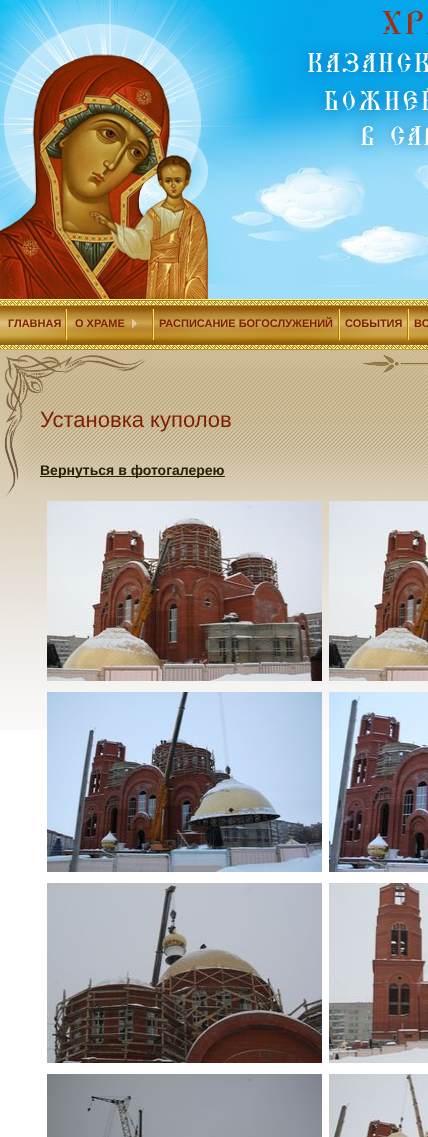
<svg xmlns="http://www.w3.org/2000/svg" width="428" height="1137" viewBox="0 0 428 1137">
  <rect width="100%" height="100%" fill="rgb(255,255,255)"/>
  <image x="0" y="0" width="428" height="299" href="pic1.png"/>
  <image x="0" y="299" width="428" height="51" href="pic2.png"/>
  <text x="8" y="327" font-family="Liberation Sans" font-size="11" font-weight="bold" fill="rgb(126,31,1)">ГЛАВНАЯ</text>
  <image x="65" y="309" width="2" height="31" href="pic3.png"/>
  <text x="75" y="327" font-family="Liberation Sans" font-size="11" font-weight="bold" fill="rgb(126,31,1)">О ХРАМЕ</text>
  <image x="132" y="319" width="5" height="9" href="pic4.png"/>
  <image x="152" y="309" width="2" height="31" href="pic3.png"/>
  <text x="159" y="327" font-family="Liberation Sans" font-size="11" font-weight="bold" fill="rgb(126,31,1)">РАСПИСАНИЕ БОГОСЛУЖЕНИЙ</text>
  <image x="338" y="309" width="2" height="31" href="pic3.png"/>
  <text x="345" y="327" font-family="Liberation Sans" font-size="11" font-weight="bold" fill="rgb(126,31,1)">СОБЫТИЯ</text>
  <image x="407" y="309" width="2" height="31" href="pic3.png"/>
  <text x="414" y="327" font-family="Liberation Sans" font-size="11" font-weight="bold" fill="rgb(126,31,1)">ВО</text>
  <image x="0" y="350" width="428" height="380" href="pic5.png"/>
  <text x="40" y="427" font-family="Liberation Sans" font-size="22" fill="rgb(126,31,1)">Установка куполов</text>
  <rect x="40" y="476" width="185" height="1" fill="rgb(42,32,1)"/>
  <text x="40" y="475" font-family="Liberation Sans" font-size="14" font-weight="bold" fill="rgb(42,32,1)">Вернуться в фотогалерею</text>
  <image x="47" y="501" width="275" height="180" href="pic6.png"/>
  <image x="329" y="501" width="99" height="180" href="pic7.png"/>
  <image x="47" y="692" width="275" height="180" href="pic8.png"/>
  <image x="329" y="692" width="99" height="180" href="pic9.png"/>
  <image x="47" y="883" width="275" height="180" href="pic10.png"/>
  <image x="329" y="883" width="99" height="180" href="pic11.png"/>
  <image x="47" y="1074" width="275" height="63" href="pic12.png"/>
  <image x="329" y="1074" width="99" height="63" href="pic13.png"/>
</svg>
